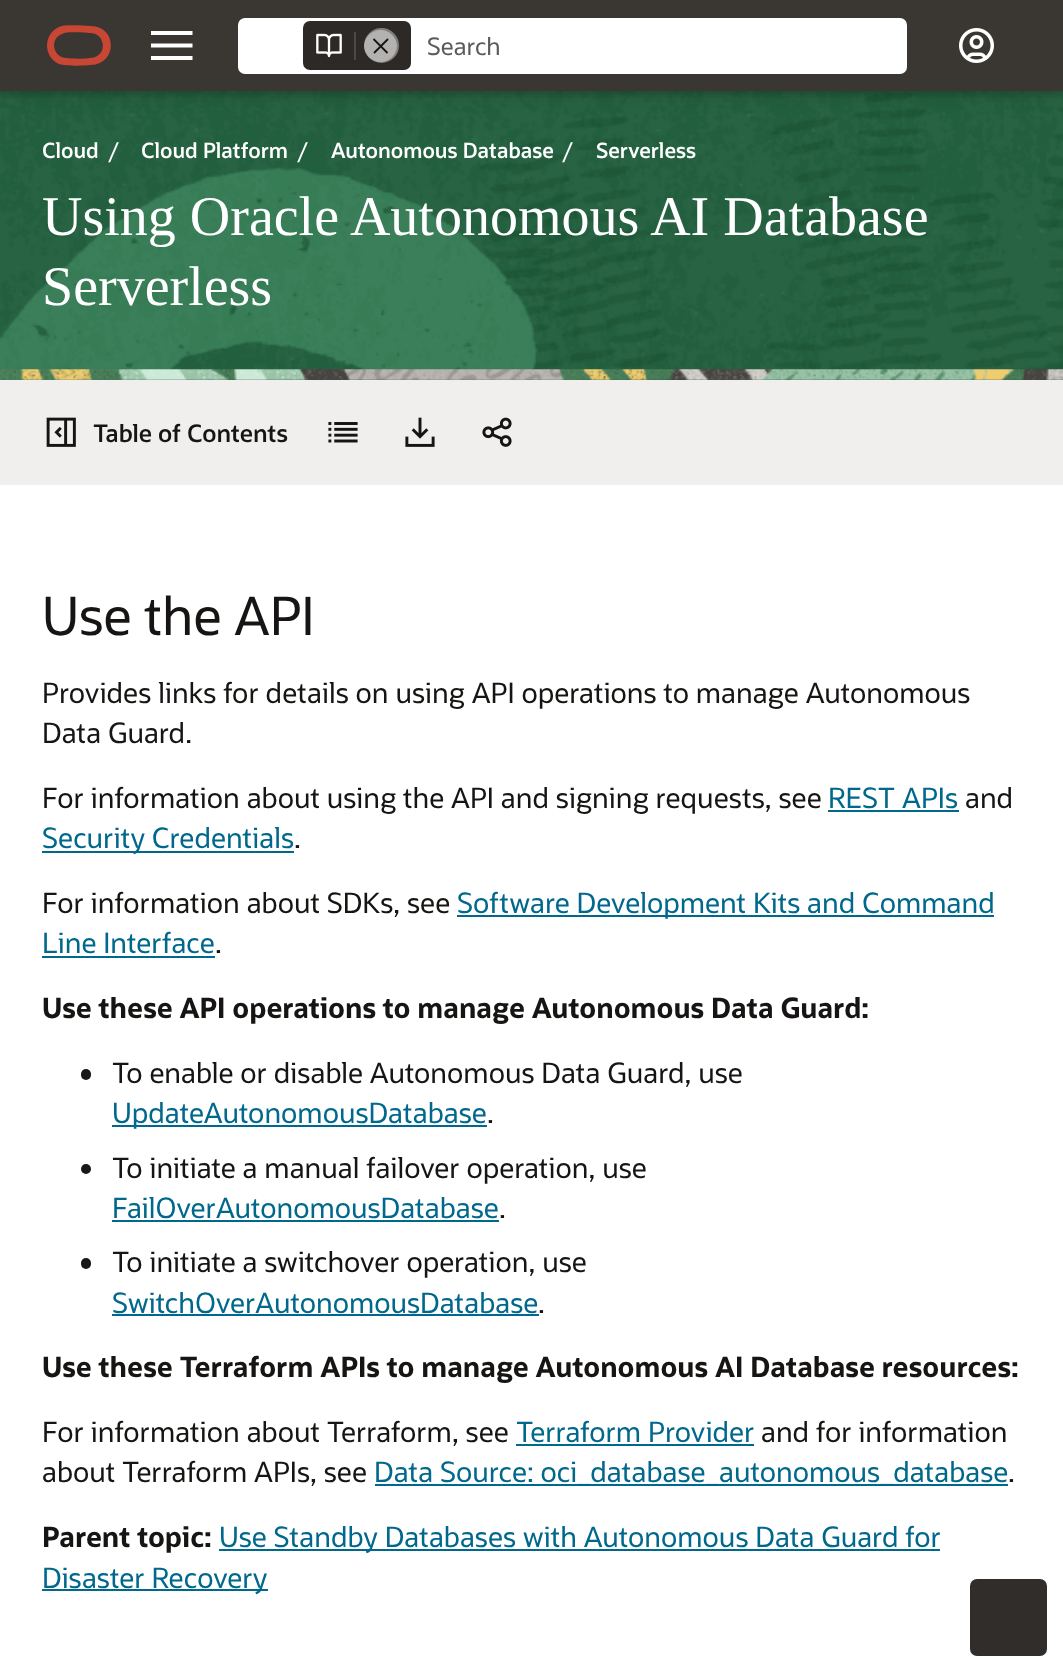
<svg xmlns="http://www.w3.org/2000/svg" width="1063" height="1672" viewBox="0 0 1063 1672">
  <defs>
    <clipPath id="clip1"><rect x="151" y="25" width="42" height="42"/></clipPath>
    <linearGradient id="g1" gradientUnits="userSpaceOnUse" x1="532" y1="91" x2="532" y2="100"><stop offset="0" stop-color="rgb(0,0,0)" stop-opacity="0.12"/><stop offset="1" stop-color="rgb(0,0,0)" stop-opacity="0"/></linearGradient>
  </defs>
  <rect width="100%" height="100%" fill="rgb(255,255,255)"/>
  <image x="0" y="91" width="1063" height="289" href="pic3.png"/>
  <rect x="0" y="4" width="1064" height="91" fill="rgba(0,0,0,0.15)" filter="blur(9px)"/>
  <rect x="0" y="0" width="1063" height="91" fill="rgb(58,54,50)"/>
  <path d="M91 26C117 26 118 64 91 65C83 66 65 66 59 64C43 57 43 34 59 27C66 24 82 26 91 26ZM90 33C84 33 68 31 62 34C49 39 53 58 67 58C73 59 90 59 95 57C108 52 104 33 90 33Z" fill="rgb(199,70,52)" fill-rule="evenodd"/>
  <g clip-path="url(#clip1)">
    <path d="M150.5 33H192.5M150.5 45.5H192.5M150.5 58H192.5" fill="none" stroke="rgb(255,255,255)" stroke-width="4.2"/>
  </g>
  <rect x="238" y="18" width="669" height="56" rx="7" fill="rgb(255,255,255)"/>
  <rect x="304" y="22" width="106" height="47" rx="6" fill="rgb(44,41,38)" stroke="rgb(44,41,38)" stroke-width="2"/>
  <image x="316" y="33" width="26" height="25" href="pic1.png"/>
  <rect x="354" y="32" width="2" height="28" fill="rgb(75,73,70)"/>
  <circle cx="381.5" cy="45.5" r="18.5" fill="rgb(128,127,125)" stroke="rgb(44,41,38)" stroke-width="2"/>
  <path d="M380.5 30C371.5 30 364.5 37 364 46C364.5 55 371.5 62 380.5 62C389.5 62 396.5 55 397 46C396.5 37 389.5 30 380.5 30Z" fill="rgba(255,255,255,0.4)"/>
  <path d="M373.5 39L387.5 53M388 39L374 53" fill="none" stroke="rgb(22,21,19)" stroke-width="1.8"/>
  <text x="427" y="55" font-family="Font" font-size="24" fill="rgb(92,91,90)">Search</text>
  <image x="959" y="28" width="35" height="35" href="pic2.png"/>
  <rect x="0" y="91" width="1063" height="7" fill="url(#g1)"/>
  <text x="42" y="158" font-family="Font" font-size="21" font-weight="600" fill="rgb(255,255,255)">Cloud</text>
  <text x="108" y="158" font-family="Font" font-size="21" fill="rgb(255,255,255)">/</text>
  <text x="141" y="158" font-family="Font" font-size="21" font-weight="600" fill="rgb(255,255,255)">Cloud Platform</text>
  <text x="297" y="158" font-family="Font" font-size="21" fill="rgb(255,255,255)">/</text>
  <text x="331" y="158" font-family="Font" font-size="21" font-weight="600" fill="rgb(255,255,255)">Autonomous Database</text>
  <text x="562" y="158" font-family="Font" font-size="21" fill="rgb(255,255,255)">/</text>
  <text x="596" y="158" font-family="Font" font-size="21" font-weight="600" fill="rgb(255,255,255)">Serverless</text>
  <g font-family="Liberation Serif" font-size="56" fill="rgb(255,255,255)">
    <text>
      <tspan x="42" y="235">Using Oracle Autonomous AI Database</tspan>
      <tspan x="42" y="305">Serverless</tspan>
    </text>
  </g>
  <image x="0" y="369" width="1063" height="11" href="pic4.png"/>
  <rect x="0" y="380" width="1063" height="105" fill="rgb(241,239,237)"/>
  <image x="46" y="417" width="30" height="30" href="pic5.png"/>
  <text x="93" y="442" font-family="Font" font-size="24" font-weight="600" fill="rgb(22,21,19)">Table of Contents</text>
  <image x="328" y="422" width="30" height="21" href="pic6.png"/>
  <image x="405" y="417" width="30" height="30" href="pic7.png"/>
  <image x="482" y="417" width="30" height="30" href="pic8.png"/>
  <text x="42" y="635" font-family="Font" font-size="52.5" fill="rgb(22,21,19)">Use the API</text>
  <g font-family="Font" font-size="28" fill="rgb(22,21,19)">
    <text>
      <tspan x="42" y="703">Provides links for details on using API operations to manage Autonomous</tspan>
      <tspan x="42" y="743">Data Guard.</tspan>
    </text>
    <text x="42" y="808">For information about using the API and signing requests, see</text>
  </g>
  <text x="828" y="808" font-family="Font" font-size="28" fill="rgb(0,104,140)">REST APIs</text>
  <rect x="828" y="810" width="131" height="2" fill="rgb(0,104,140)"/>
  <text x="965" y="808" font-family="Font" font-size="28" fill="rgb(22,21,19)">and</text>
  <rect x="42" y="851" width="252" height="2" fill="rgb(0,104,140)"/>
  <text x="42" y="848" font-family="Font" font-size="28" fill="rgb(0,104,140)">Security Credentials</text>
  <g font-family="Font" font-size="28" fill="rgb(22,21,19)">
    <text x="294" y="848">.</text>
    <text x="42" y="913">For information about SDKs, see</text>
  </g>
  <rect x="457" y="915" width="537" height="2" fill="rgb(0,104,140)"/>
  <g font-family="Font" font-size="28" fill="rgb(0,104,140)">
    <text x="457" y="913">Software Development Kits and Command</text>
    <text x="42" y="953">Line Interface</text>
  </g>
  <rect x="42" y="956" width="173" height="2" fill="rgb(0,104,140)"/>
  <text x="215" y="953" font-family="Font" font-size="28" fill="rgb(22,21,19)">.</text>
  <text x="42" y="1018" font-family="Font" font-size="28" font-weight="bold" fill="rgb(22,21,19)">Use these API operations to manage Autonomous Data Guard:</text>
  <rect x="81" y="1069" width="10" height="11" rx="5" fill="rgb(26,24,22)"/>
  <text x="112" y="1083" font-family="Font" font-size="28" fill="rgb(22,21,19)">To enable or disable Autonomous Data Guard, use</text>
  <rect x="112" y="1125" width="375" height="2" fill="rgb(0,104,140)"/>
  <text x="112" y="1123" font-family="Font" font-size="28" fill="rgb(0,104,140)">UpdateAutonomousDatabase</text>
  <text x="487" y="1123" font-family="Font" font-size="28" fill="rgb(22,21,19)">.</text>
  <circle cx="86" cy="1169" r="5" fill="rgb(26,24,22)"/>
  <text x="112" y="1178" font-family="Font" font-size="28" fill="rgb(22,21,19)">To initiate a manual failover operation, use</text>
  <text x="112" y="1218" font-family="Font" font-size="28" fill="rgb(0,104,140)">FailOverAutonomousDatabase</text>
  <rect x="112" y="1220" width="387" height="2" fill="rgb(0,104,140)"/>
  <text x="499" y="1218" font-family="Font" font-size="28" fill="rgb(22,21,19)">.</text>
  <rect x="81" y="1258" width="10" height="11" rx="5" fill="rgb(26,24,22)"/>
  <text x="112" y="1272" font-family="Font" font-size="28" fill="rgb(22,21,19)">To initiate a switchover operation, use</text>
  <text x="112" y="1313" font-family="Font" font-size="28" fill="rgb(0,104,140)">SwitchOverAutonomousDatabase</text>
  <rect x="112" y="1314" width="427" height="2" fill="rgb(0,104,140)"/>
  <text x="538" y="1313" font-family="Font" font-size="28" fill="rgb(22,21,19)">.</text>
  <text x="42" y="1377" font-family="Font" font-size="28" font-weight="bold" fill="rgb(22,21,19)">Use these Terraform APIs to manage Autonomous AI Database resources:</text>
  <text x="42" y="1442" font-family="Font" font-size="28" fill="rgb(22,21,19)">For information about Terraform, see</text>
  <text x="516" y="1442" font-family="Font" font-size="28" fill="rgb(0,104,140)">Terraform Provider</text>
  <rect x="516" y="1444" width="238" height="2" fill="rgb(0,104,140)"/>
  <g font-family="Font" font-size="28" fill="rgb(22,21,19)">
    <text x="761" y="1442">and for information</text>
    <text x="42" y="1482">about Terraform APIs, see</text>
  </g>
  <rect x="375" y="1484" width="633" height="2" fill="rgb(0,104,140)"/>
  <text x="374" y="1482" font-family="Font" font-size="28" fill="rgb(0,104,140)">Data Source: oci_database_autonomous_database</text>
  <text x="1008" y="1482" font-family="Font" font-size="28" fill="rgb(22,21,19)">.</text>
  <text x="42" y="1547" font-family="Font" font-size="28" font-weight="bold" fill="rgb(22,21,19)">Parent topic:</text>
  <rect x="219" y="1549" width="721" height="2" fill="rgb(0,104,140)"/>
  <text x="219" y="1547" font-family="Font" font-size="28" fill="rgb(0,104,140)">Use Standby Databases with Autonomous Data Guard for</text>
  <rect x="42" y="1589" width="226" height="2" fill="rgb(0,104,140)"/>
  <text x="42" y="1588" font-family="Font" font-size="28" fill="rgb(0,104,140)">Disaster Recovery</text>
  <rect x="970" y="1579" width="77" height="77" rx="7" fill="rgb(49,45,42)"/>
</svg>
